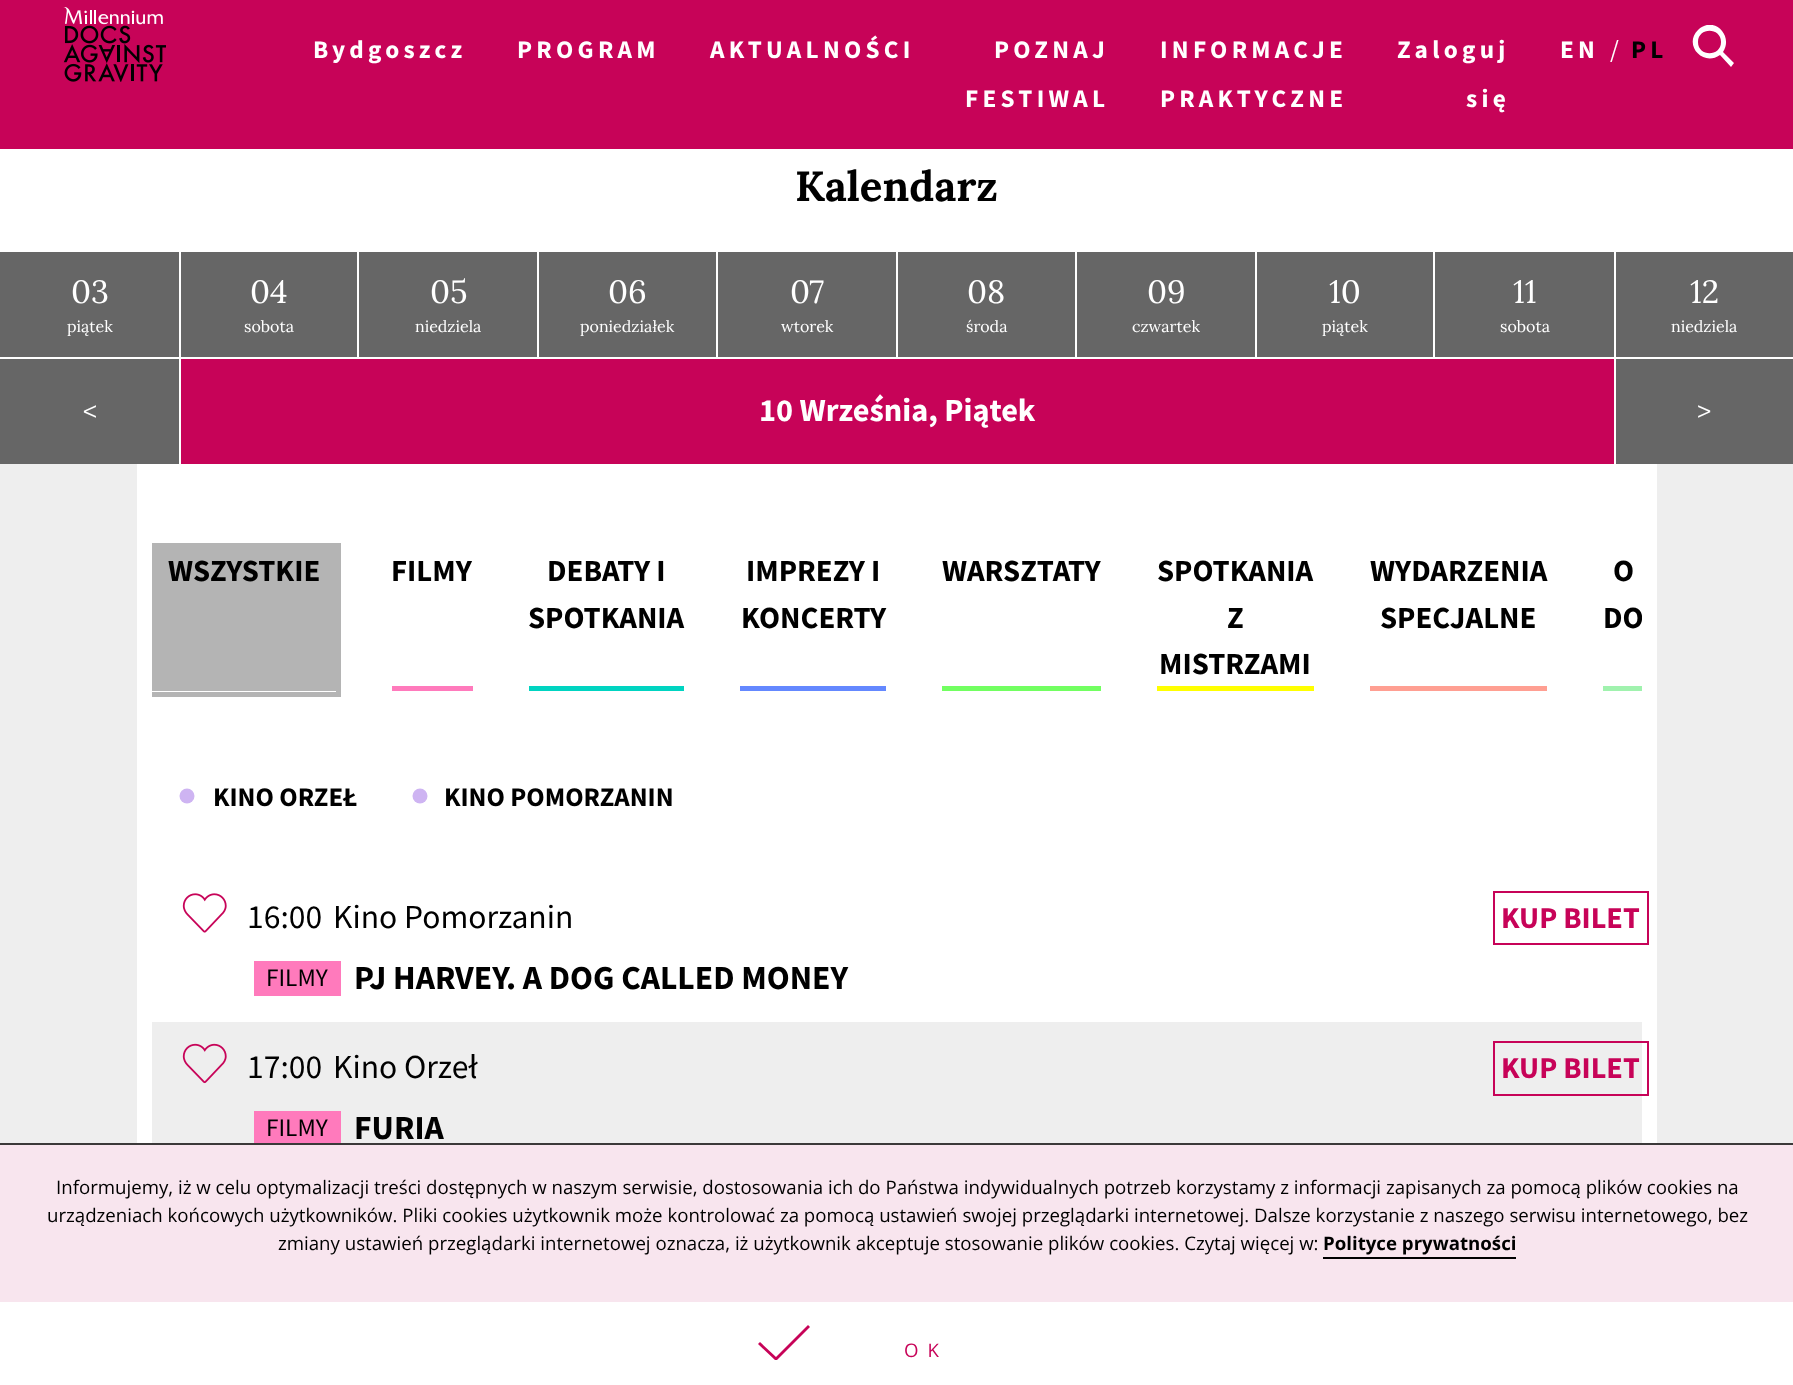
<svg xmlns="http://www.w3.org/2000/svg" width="1793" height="1385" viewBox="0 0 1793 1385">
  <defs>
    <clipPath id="clip1"><rect x="1692" y="25" width="44" height="43"/></clipPath>
    <clipPath id="clip2"><rect x="152" y="520" width="1490" height="199"/></clipPath>
  </defs>
  <rect width="100%" height="100%" fill="rgb(255,255,255)"/>
  <rect x="0" y="0" width="1793" height="149" fill="rgb(199,3,88)"/>
  <image x="63" y="7" width="103" height="75" href="pic1.png"/>
  <g font-family="Source Sans Pro" font-size="25.25" font-weight="bold" letter-spacing="4.25" fill="rgb(255,255,255)">
    <text x="313" y="58">Bydgoszcz</text>
    <text x="517" y="58">PROGRAM</text>
    <text x="710" y="58">AKTUALNOŚCI</text>
    <text x="994" y="58">POZNAJ</text>
    <text x="965" y="107">FESTIWAL</text>
    <text>
      <tspan x="1160" y="58">INFORMACJE</tspan>
      <tspan x="1160" y="107">PRAKTYCZNE</tspan>
    </text>
    <text x="1397" y="58">Zaloguj</text>
    <text x="1466" y="107">się</text>
    <text x="1560" y="58">EN</text>
  </g>
  <text x="1610" y="58" font-family="Source Sans Pro" font-size="25.25" letter-spacing="4.25" fill="rgb(255,255,255)">/</text>
  <text x="1631" y="58" font-family="Source Sans Pro" font-size="25.25" font-weight="bold" letter-spacing="4.25" fill="rgb(0,0,0)">PL</text>
  <g clip-path="url(#clip1)">
    <path d="M1734 63L1723 52C1734 35 1713 15 1698 30C1683 45 1703 67 1720 55L1731 67ZM1698 42C1698 27 1721 27 1721 42C1721 57 1698 57 1698 42Z" fill="rgb(255,255,255)"/>
  </g>
  <text x="795" y="201" font-family="Lora" font-size="42" font-weight="bold" fill="rgb(0,0,0)">Kalendarz</text>
  <rect x="0" y="252" width="179" height="105" fill="rgb(102,102,102)"/>
  <text x="71" y="303" font-family="Lora" font-size="32.25" fill="rgb(255,255,255)">03</text>
  <text x="67" y="332" font-family="Lora" font-size="16" fill="rgb(255,255,255)">piątek</text>
  <rect x="181" y="252" width="176" height="105" fill="rgb(102,102,102)"/>
  <text x="250" y="303" font-family="Lora" font-size="32.25" fill="rgb(255,255,255)">04</text>
  <text x="244" y="332" font-family="Lora" font-size="16" fill="rgb(255,255,255)">sobota</text>
  <rect x="359" y="252" width="178" height="105" fill="rgb(102,102,102)"/>
  <text x="430" y="303" font-family="Lora" font-size="32.25" fill="rgb(255,255,255)">05</text>
  <text x="415" y="332" font-family="Lora" font-size="16" fill="rgb(255,255,255)">niedziela</text>
  <rect x="539" y="252" width="177" height="105" fill="rgb(102,102,102)"/>
  <text x="608" y="303" font-family="Lora" font-size="32.25" fill="rgb(255,255,255)">06</text>
  <text x="580" y="332" font-family="Lora" font-size="16" fill="rgb(255,255,255)">poniedziałek</text>
  <rect x="718" y="252" width="178" height="105" fill="rgb(102,102,102)"/>
  <text x="790" y="303" font-family="Lora" font-size="32.25" fill="rgb(255,255,255)">07</text>
  <text x="781" y="332" font-family="Lora" font-size="16" fill="rgb(255,255,255)">wtorek</text>
  <rect x="898" y="252" width="177" height="105" fill="rgb(102,102,102)"/>
  <text x="967" y="303" font-family="Lora" font-size="32.25" fill="rgb(255,255,255)">08</text>
  <text x="966" y="332" font-family="Lora" font-size="16" fill="rgb(255,255,255)">środa</text>
  <rect x="1077" y="252" width="178" height="105" fill="rgb(102,102,102)"/>
  <text x="1147" y="303" font-family="Lora" font-size="32.25" fill="rgb(255,255,255)">09</text>
  <text x="1132" y="332" font-family="Lora" font-size="16" fill="rgb(255,255,255)">czwartek</text>
  <rect x="1257" y="252" width="176" height="105" fill="rgb(102,102,102)"/>
  <text x="1329" y="303" font-family="Lora" font-size="32.25" fill="rgb(255,255,255)">10</text>
  <text x="1322" y="332" font-family="Lora" font-size="16" fill="rgb(255,255,255)">piątek</text>
  <rect x="1435" y="252" width="179" height="105" fill="rgb(102,102,102)"/>
  <text x="1513" y="303" font-family="Lora" font-size="32.25" fill="rgb(255,255,255)">11</text>
  <text x="1500" y="332" font-family="Lora" font-size="16" fill="rgb(255,255,255)">sobota</text>
  <rect x="1616" y="252" width="177" height="105" fill="rgb(102,102,102)"/>
  <text x="1690" y="303" font-family="Lora" font-size="32.25" fill="rgb(255,255,255)">12</text>
  <text x="1671" y="332" font-family="Lora" font-size="16" fill="rgb(255,255,255)">niedziela</text>
  <rect x="0" y="359" width="179" height="105" fill="rgb(102,102,102)"/>
  <text x="83" y="420" font-family="Lora" font-size="27" fill="rgb(255,255,255)">&lt;</text>
  <rect x="181" y="359" width="1433" height="105" fill="rgb(199,3,88)"/>
  <text x="759" y="421" font-family="Source Sans Pro" font-size="32.25" font-weight="bold" fill="rgb(255,255,255)">10 Września, Piątek</text>
  <rect x="1616" y="359" width="177" height="105" fill="rgb(102,102,102)"/>
  <text x="1697" y="420" font-family="Lora" font-size="27" fill="rgb(255,255,255)">&gt;</text>
  <rect x="0" y="464" width="137" height="679" fill="rgb(238,238,238)"/>
  <rect x="152" y="548" width="184" height="143" fill="rgb(180,180,180)"/>
  <g clip-path="url(#clip2)">
    <rect x="149.5" y="545.5" width="189" height="149" fill="none" stroke="rgb(180,180,180)" stroke-width="5"/>
  </g>
  <text x="168" y="581" font-family="Source Sans Pro" font-size="30.75" font-weight="bold" fill="rgb(0,0,0)">WSZYSTKIE</text>
  <rect x="392" y="686" width="81" height="5" fill="rgb(255,122,188)"/>
  <text x="391" y="581" font-family="Source Sans Pro" font-size="30.75" font-weight="bold" fill="rgb(0,0,0)">FILMY</text>
  <rect x="529" y="686" width="155" height="5" fill="rgb(0,212,193)"/>
  <g font-family="Source Sans Pro" font-size="30.75" font-weight="bold" fill="rgb(0,0,0)">
    <text x="547" y="581">DEBATY I</text>
    <text x="528" y="628">SPOTKANIA</text>
  </g>
  <rect x="740" y="686" width="146" height="5" fill="rgb(100,136,255)"/>
  <g font-family="Source Sans Pro" font-size="30.75" font-weight="bold" fill="rgb(0,0,0)">
    <text x="746" y="581">IMPREZY I</text>
    <text x="741" y="628">KONCERTY</text>
  </g>
  <rect x="942" y="686" width="159" height="5" fill="rgb(114,255,97)"/>
  <text x="942" y="581" font-family="Source Sans Pro" font-size="30.75" font-weight="bold" fill="rgb(0,0,0)">WARSZTATY</text>
  <rect x="1157" y="686" width="157" height="5" fill="rgb(255,255,0)"/>
  <g font-family="Source Sans Pro" font-size="30.75" font-weight="bold" fill="rgb(0,0,0)">
    <text x="1157" y="581">SPOTKANIA</text>
    <text x="1227" y="628">Z</text>
    <text x="1159" y="674">MISTRZAMI</text>
  </g>
  <rect x="1370" y="686" width="177" height="5" fill="rgb(255,159,146)"/>
  <g font-family="Source Sans Pro" font-size="30.75" font-weight="bold" fill="rgb(0,0,0)">
    <text x="1370" y="581">WYDARZENIA</text>
    <text x="1380" y="628">SPECJALNE</text>
  </g>
  <rect x="1603" y="686" width="39" height="5" fill="rgb(160,242,174)"/>
  <text x="1613" y="581" font-family="Source Sans Pro" font-size="30.75" font-weight="bold" fill="rgb(0,0,0)">O</text>
  <g clip-path="url(#clip2)">
    <text x="1603" y="628" font-family="Source Sans Pro" font-size="30.75" font-weight="bold" fill="rgb(0,0,0)">DO</text>
  </g>
  <text x="213" y="806" font-family="Source Sans Pro" font-size="26.9" font-weight="bold" fill="rgb(0,0,0)">KINO ORZEŁ</text>
  <circle cx="187" cy="796" r="7.5" fill="rgb(206,180,242)"/>
  <text x="444" y="806" font-family="Source Sans Pro" font-size="26.9" font-weight="bold" fill="rgb(0,0,0)">KINO POMORZANIN</text>
  <circle cx="420" cy="796" r="7.5" fill="rgb(206,180,242)"/>
  <image x="182" y="893" width="45" height="40" href="pic2.png"/>
  <g font-family="Source Sans Pro" font-size="33.6" fill="rgb(0,0,0)">
    <text x="247" y="928">16:00</text>
    <text x="333" y="928">Kino Pomorzanin</text>
  </g>
  <rect x="254" y="961" width="87" height="35" fill="rgb(255,122,188)"/>
  <text x="266" y="986" font-family="Source Sans Pro" font-size="25.25" fill="rgb(0,0,0)">FILMY</text>
  <text x="354" y="989" font-family="Source Sans Pro" font-size="33.6" font-weight="bold" fill="rgb(0,0,0)">PJ HARVEY. A DOG CALLED MONEY</text>
  <rect x="1494" y="892" width="154" height="52" fill="none" stroke="rgb(199,3,88)" stroke-width="2"/>
  <text x="1501" y="928" font-family="Source Sans Pro" font-size="30.25" font-weight="bold" fill="rgb(199,3,88)">KUP BILET</text>
  <rect x="152" y="1022" width="1490" height="121" fill="rgb(238,238,238)"/>
  <image x="182" y="1043" width="45" height="41" href="pic3.png"/>
  <g font-family="Source Sans Pro" font-size="33.6" fill="rgb(0,0,0)">
    <text x="247" y="1078">17:00</text>
    <text x="333" y="1078">Kino Orzeł</text>
  </g>
  <rect x="254" y="1111" width="87" height="32" fill="rgb(255,122,188)"/>
  <text x="266" y="1136" font-family="Source Sans Pro" font-size="25.25" fill="rgb(0,0,0)">FILMY</text>
  <text x="354" y="1139" font-family="Source Sans Pro" font-size="33.6" font-weight="bold" fill="rgb(0,0,0)">FURIA</text>
  <rect x="1494" y="1042" width="154" height="53" fill="none" stroke="rgb(199,3,88)" stroke-width="2"/>
  <text x="1501" y="1078" font-family="Source Sans Pro" font-size="30.25" font-weight="bold" fill="rgb(199,3,88)">KUP BILET</text>
  <rect x="1657" y="464" width="136" height="679" fill="rgb(238,238,238)"/>
  <rect x="0" y="1145" width="1793" height="157" fill="rgb(248,229,238)"/>
  <rect x="0" y="1143" width="1793" height="2" fill="rgb(59,57,57)"/>
  <g font-family="Open Sans" font-size="18.67" fill="rgb(0,0,0)">
    <text x="56" y="1194">Informujemy, iż w celu optymalizacji treści dostępnych w naszym serwisie, dostosowania ich do Państwa indywidualnych potrzeb korzystamy z informacji zapisanych za pomocą plików cookies na</text>
    <text x="47" y="1222">urządzeniach końcowych użytkowników. Pliki cookies użytkownik może kontrolować za pomocą ustawień swojej przeglądarki internetowej. Dalsze korzystanie z naszego serwisu internetowego, bez</text>
    <text x="278" y="1250">zmiany ustawień przeglądarki internetowej oznacza, iż użytkownik akceptuje stosowanie plików cookies. Czytaj więcej w:</text>
  </g>
  <text x="1323" y="1250" font-family="Open Sans" font-size="18.67" font-weight="bold" fill="rgb(0,0,0)">Polityce prywatności</text>
  <rect x="1323" y="1257" width="193" height="2" fill="rgb(0,0,0)"/>
  <path d="M777 1360H775L758 1344L760 1342L776 1357L808 1325L810 1327Z" fill="rgb(199,3,88)"/>
  <text x="904" y="1357" font-family="Open Sans" font-size="18.67" letter-spacing="9" fill="rgb(199,3,88)">OK</text>
</svg>
